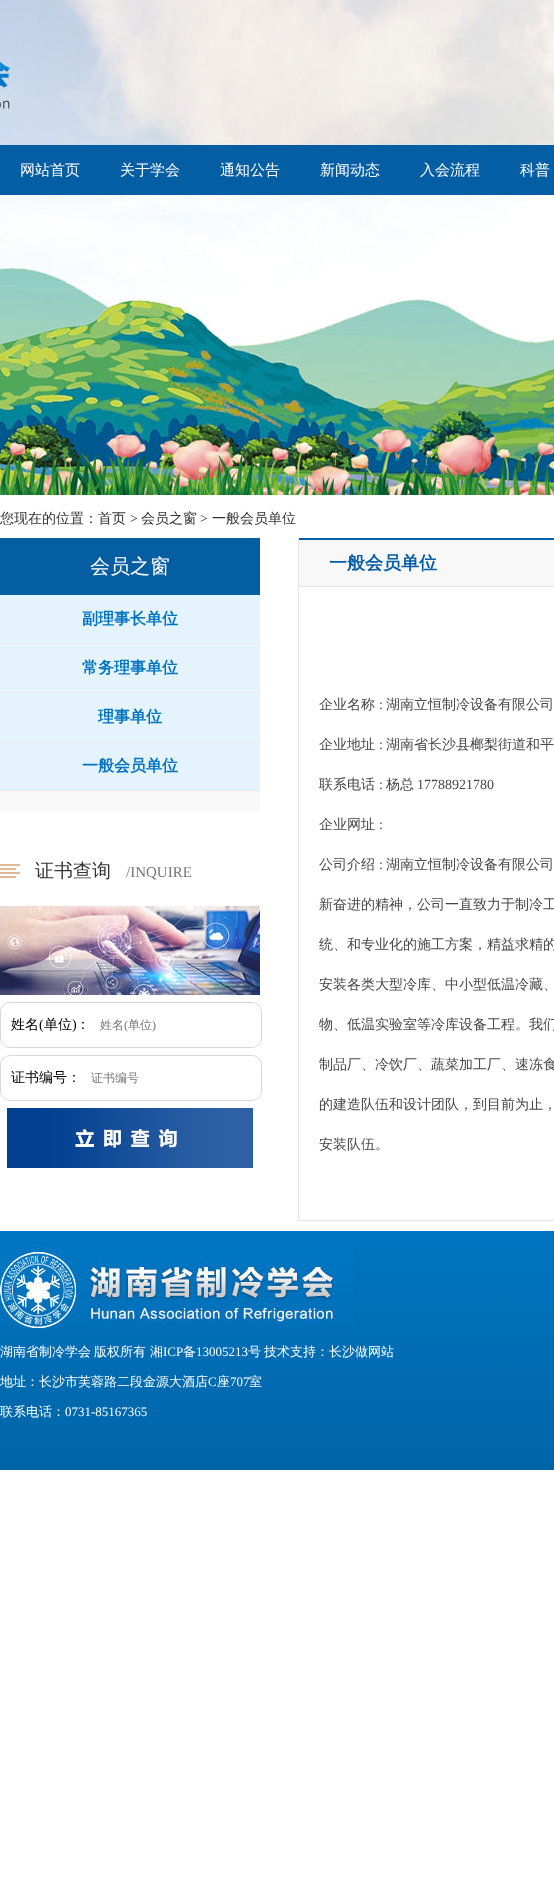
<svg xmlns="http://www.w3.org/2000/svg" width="554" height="1878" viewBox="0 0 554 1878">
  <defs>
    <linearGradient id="g1" gradientUnits="userSpaceOnUse" x1="277" y1="1231" x2="277" y2="1470"><stop offset="0" stop-color="rgb(0,117,193)"/><stop offset="1" stop-color="rgb(0,101,167)"/></linearGradient>
  </defs>
  <rect width="100%" height="100%" fill="rgb(255,255,255)"/>
  <image x="0" y="0" width="554" height="145" href="pic1.png"/>
  <rect x="0" y="145" width="554" height="50" fill="rgb(4,94,163)"/>
  <g font-family="WenQuanYi Zen Hei" font-size="15" font-weight="500" fill="rgb(255,255,255)">
    <text x="20" y="175">网站首页</text>
    <text x="120" y="175">关于学会</text>
    <text x="220" y="175">通知公告</text>
    <text x="320" y="175">新闻动态</text>
    <text x="420" y="175">入会流程</text>
    <text x="520" y="175">科普</text>
  </g>
  <image x="0" y="195" width="554" height="300" href="pic2.png"/>
  <text x="0" y="523" font-family="WenQuanYi Zen Hei" font-size="14" font-weight="500" fill="rgb(51,51,51)">您现在的位置：首页</text>
  <text x="130" y="523" font-family="Liberation Serif" font-size="14" fill="rgb(51,51,51)">&gt;</text>
  <text x="141" y="523" font-family="WenQuanYi Zen Hei" font-size="14" font-weight="500" fill="rgb(51,51,51)">会员之窗</text>
  <text x="200" y="523" font-family="Liberation Serif" font-size="14" fill="rgb(51,51,51)">&gt;</text>
  <text x="212" y="523" font-family="WenQuanYi Zen Hei" font-size="14" font-weight="500" fill="rgb(51,51,51)">一般会员单位</text>
  <rect x="0" y="791" width="260" height="20" fill="rgb(248,248,248)"/>
  <rect x="0" y="538" width="260" height="57" fill="rgb(5,94,162)"/>
  <text x="90" y="573" font-family="WenQuanYi Zen Hei" font-size="20" font-weight="500" fill="rgb(255,255,255)">会员之窗</text>
  <rect x="0" y="595" width="260" height="48" fill="rgb(229,243,253)"/>
  <rect x="0" y="643" width="260" height="1" fill="rgb(234,234,234)"/>
  <text x="82" y="624" font-family="WenQuanYi Zen Hei" font-size="16" font-weight="bold" fill="rgb(0,116,191)">副理事长单位</text>
  <rect x="0" y="644" width="260" height="48" fill="rgb(229,243,253)"/>
  <rect x="0" y="692" width="260" height="1" fill="rgb(234,234,234)"/>
  <text x="82" y="673" font-family="WenQuanYi Zen Hei" font-size="16" font-weight="bold" fill="rgb(0,116,191)">常务理事单位</text>
  <rect x="0" y="693" width="260" height="48" fill="rgb(229,243,253)"/>
  <rect x="0" y="741" width="260" height="1" fill="rgb(234,234,234)"/>
  <text x="98" y="722" font-family="WenQuanYi Zen Hei" font-size="16" font-weight="bold" fill="rgb(0,116,191)">理事单位</text>
  <rect x="0" y="742" width="260" height="48" fill="rgb(229,243,253)"/>
  <rect x="0" y="790" width="260" height="1" fill="rgb(234,234,234)"/>
  <text x="82" y="771" font-family="WenQuanYi Zen Hei" font-size="16" font-weight="bold" fill="rgb(0,116,191)">一般会员单位</text>
  <image x="0" y="864" width="20" height="14" href="pic3.png"/>
  <text x="35" y="877" font-family="WenQuanYi Zen Hei" font-size="19" font-weight="500" fill="rgb(51,51,51)">证书查询</text>
  <text x="126" y="877" font-family="Liberation Serif" font-size="15" fill="rgb(117,117,117)">/INQUIRE</text>
  <image x="0" y="906" width="260" height="89" href="pic4.png"/>
  <rect x="0.5" y="1002.5" width="261" height="45" rx="9.5" fill="none" stroke="rgb(216,216,216)"/>
  <text x="11" y="1029" font-family="WenQuanYi Zen Hei" font-size="14" font-weight="500" fill="rgb(0,0,0)">姓名</text>
  <text x="39" y="1029" font-family="Liberation Serif" font-size="14" fill="rgb(0,0,0)">(</text>
  <text x="44" y="1029" font-family="WenQuanYi Zen Hei" font-size="14" font-weight="500" fill="rgb(0,0,0)">单位</text>
  <text x="72" y="1029" font-family="Liberation Serif" font-size="14" fill="rgb(0,0,0)">)</text>
  <text x="76" y="1029" font-family="WenQuanYi Zen Hei" font-size="14" font-weight="500" fill="rgb(0,0,0)">：</text>
  <text x="100" y="1029" font-family="WenQuanYi Zen Hei" font-size="12" font-weight="500" fill="rgb(117,117,117)">姓名</text>
  <text x="124" y="1029" font-family="Liberation Serif" font-size="12" fill="rgb(117,117,117)">(</text>
  <text x="128" y="1029" font-family="WenQuanYi Zen Hei" font-size="12" font-weight="500" fill="rgb(117,117,117)">单位</text>
  <text x="152" y="1029" font-family="Liberation Serif" font-size="12" fill="rgb(117,117,117)">)</text>
  <rect x="0.5" y="1055.5" width="261" height="45" rx="9.5" fill="none" stroke="rgb(216,216,216)"/>
  <text x="11" y="1082" font-family="WenQuanYi Zen Hei" font-size="14" font-weight="500" fill="rgb(0,0,0)">证书编号：</text>
  <text x="91" y="1082" font-family="WenQuanYi Zen Hei" font-size="12" font-weight="500" fill="rgb(117,117,117)">证书编号</text>
  <image x="7" y="1108" width="246" height="60" href="pic5.png"/>
  <rect x="298" y="1220" width="256" height="1" fill="rgb(230,230,230)"/>
  <rect x="298" y="538" width="1" height="683" fill="rgb(230,230,230)"/>
  <rect x="299" y="540" width="255" height="46" fill="rgb(248,248,248)"/>
  <rect x="299" y="538" width="255" height="2" fill="rgb(5,94,162)"/>
  <rect x="299" y="586" width="255" height="1" fill="rgb(230,230,230)"/>
  <text x="329" y="569" font-family="WenQuanYi Zen Hei" font-size="18" font-weight="bold" fill="rgb(5,94,162)">一般会员单位</text>
  <text x="319" y="709" font-family="WenQuanYi Zen Hei" font-size="14" font-weight="500" fill="rgb(71,71,71)">企业名称</text>
  <text x="379" y="709" font-family="Liberation Serif" font-size="14" fill="rgb(71,71,71)">:</text>
  <g font-family="WenQuanYi Zen Hei" font-size="14" font-weight="500" fill="rgb(71,71,71)">
    <text x="386" y="709">湖南立恒制冷设备有限公司</text>
    <text x="319" y="749">企业地址</text>
  </g>
  <text x="379" y="749" font-family="Liberation Serif" font-size="14" fill="rgb(71,71,71)">:</text>
  <g font-family="WenQuanYi Zen Hei" font-size="14" font-weight="500" fill="rgb(71,71,71)">
    <text x="386" y="749">湖南省长沙县榔梨街道和平</text>
    <text x="319" y="789">联系电话</text>
  </g>
  <text x="379" y="789" font-family="Liberation Serif" font-size="14" fill="rgb(71,71,71)">:</text>
  <text x="386" y="789" font-family="WenQuanYi Zen Hei" font-size="14" font-weight="500" fill="rgb(71,71,71)">杨总</text>
  <text x="417" y="789" font-family="Liberation Serif" font-size="14" fill="rgb(71,71,71)">17788921780</text>
  <text x="319" y="829" font-family="WenQuanYi Zen Hei" font-size="14" font-weight="500" fill="rgb(71,71,71)">企业网址</text>
  <text x="379" y="829" font-family="Liberation Serif" font-size="14" fill="rgb(71,71,71)">:</text>
  <text x="319" y="869" font-family="WenQuanYi Zen Hei" font-size="14" font-weight="500" fill="rgb(71,71,71)">公司介绍</text>
  <text x="379" y="869" font-family="Liberation Serif" font-size="14" fill="rgb(71,71,71)">:</text>
  <g font-family="WenQuanYi Zen Hei" font-size="14" font-weight="500" fill="rgb(71,71,71)">
    <text x="386" y="869">湖南立恒制冷设备有限公司</text>
    <text x="319" y="909">新奋进的精神，公司一直致力于制冷工</text>
    <text x="319" y="949">统、和专业化的施工方案，精益求精的</text>
    <text x="319" y="989">安装各类大型冷库、中小型低温冷藏、</text>
    <text x="319" y="1029">物、低温实验室等冷库设备工程。我们</text>
    <text x="319" y="1069">制品厂、冷饮厂、蔬菜加工厂、速冻食</text>
    <text x="319" y="1109">的建造队伍和设计团队，到目前为止，</text>
    <text x="319" y="1149">安装队伍。</text>
  </g>
  <rect x="0" y="1231" width="554" height="239" fill="url(#g1)"/>
  <image x="0" y="1245" width="354" height="88" href="pic6.png"/>
  <g font-family="WenQuanYi Zen Hei" font-size="13" font-weight="500" fill="rgb(255,255,255)">
    <text x="0" y="1356">湖南省制冷学会</text>
    <text x="94" y="1356">版权所有</text>
    <text x="150" y="1356">湘</text>
  </g>
  <text x="163" y="1356" font-family="Liberation Serif" font-size="13" fill="rgb(255,255,255)">ICP</text>
  <text x="183" y="1356" font-family="WenQuanYi Zen Hei" font-size="13" font-weight="500" fill="rgb(255,255,255)">备</text>
  <text x="196" y="1356" font-family="Liberation Serif" font-size="13" fill="rgb(255,255,255)">13005213</text>
  <g font-family="WenQuanYi Zen Hei" font-size="13" font-weight="500" fill="rgb(255,255,255)">
    <text x="248" y="1356">号</text>
    <text x="264" y="1356">技术支持：长沙做网站</text>
    <text x="0" y="1386">地址：长沙市芙蓉路二段金源大酒店</text>
  </g>
  <text x="208" y="1386" font-family="Liberation Serif" font-size="13" fill="rgb(255,255,255)">C</text>
  <text x="217" y="1386" font-family="WenQuanYi Zen Hei" font-size="13" font-weight="500" fill="rgb(255,255,255)">座</text>
  <text x="230" y="1386" font-family="Liberation Serif" font-size="13" fill="rgb(255,255,255)">707</text>
  <g font-family="WenQuanYi Zen Hei" font-size="13" font-weight="500" fill="rgb(255,255,255)">
    <text x="249" y="1386">室</text>
    <text x="0" y="1416">联系电话：</text>
  </g>
  <text x="65" y="1416" font-family="Liberation Serif" font-size="13" fill="rgb(255,255,255)">0731-85167365</text>
</svg>
